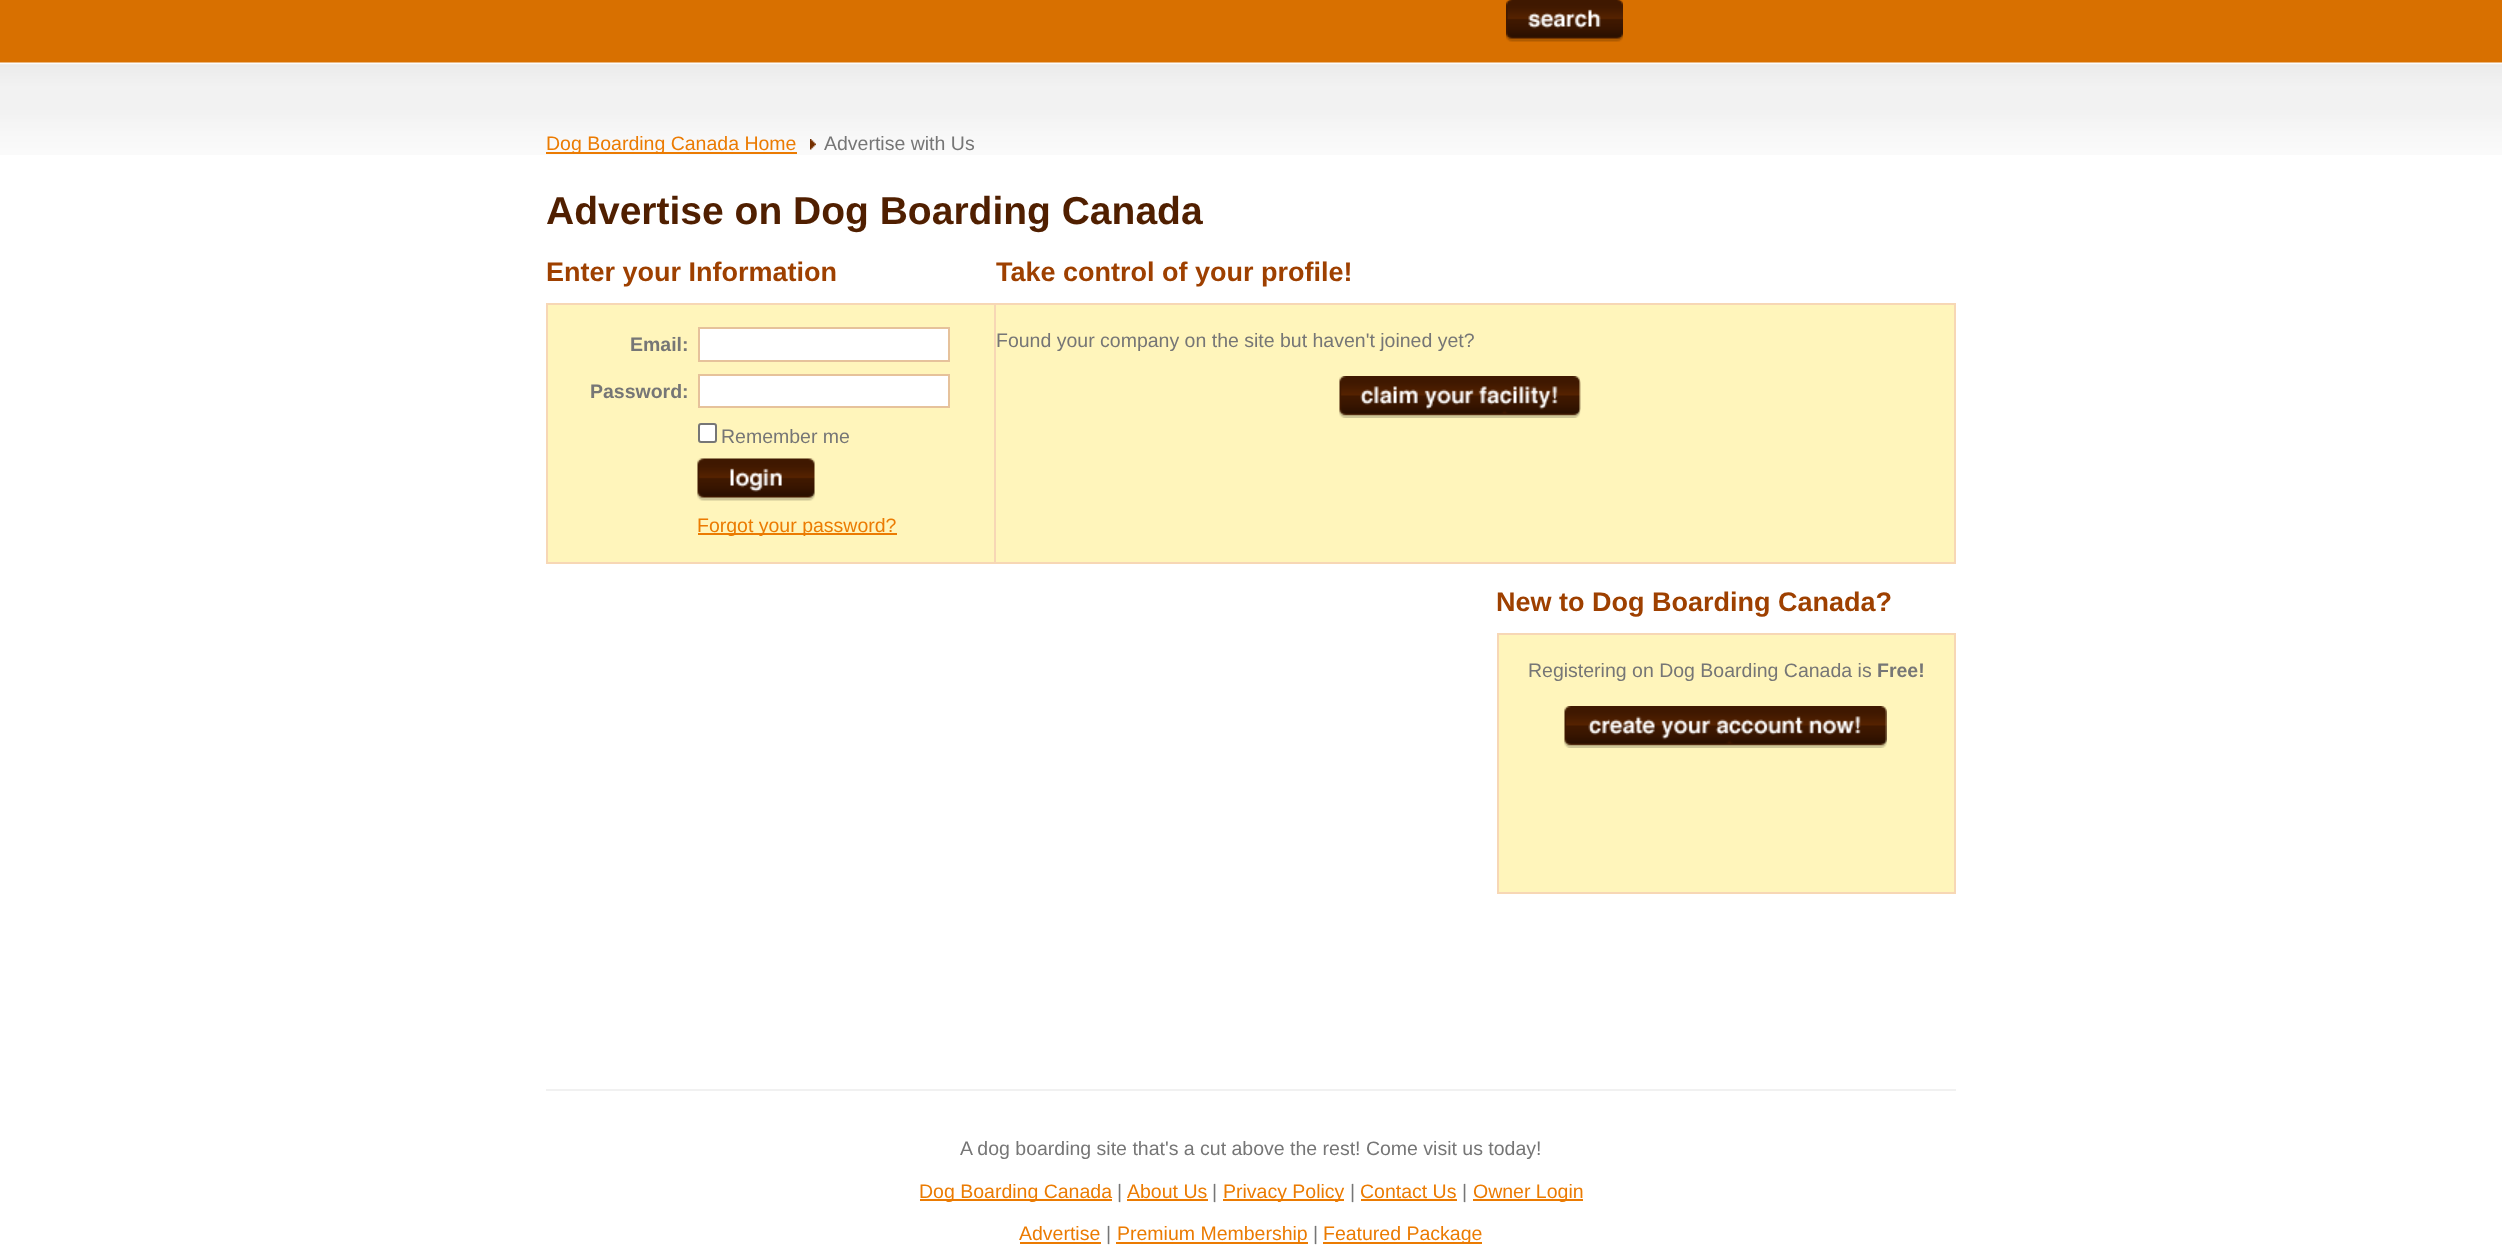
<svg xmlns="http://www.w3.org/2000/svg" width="2502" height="1258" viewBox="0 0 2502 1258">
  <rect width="100%" height="100%" fill="rgb(255,255,255)"/>
  <image x="0" y="0" width="2502" height="155" href="pic1.png"/>
  <image x="1506" y="0" width="117" height="42" href="pic2.png"/>
  <rect x="546" y="152" width="251" height="2" fill="rgb(235,123,2)"/>
  <text x="546" y="150" font-family="Liberation Sans" font-size="19.5" fill="rgb(235,123,2)">Dog Boarding Canada Home</text>
  <image x="810" y="139" width="6" height="11" href="pic3.png"/>
  <text x="824" y="150" font-family="Liberation Sans" font-size="19.5" fill="rgb(118,118,118)">Advertise with Us</text>
  <text x="546" y="224" font-family="Liberation Sans" font-size="39" font-weight="bold" fill="rgb(80,31,0)">Advertise on Dog Boarding Canada</text>
  <text x="546" y="281" font-family="Liberation Sans" font-size="27" font-weight="bold" fill="rgb(158,64,0)">Enter your Information</text>
  <rect x="996" y="305" width="958" height="257" fill="rgb(255,245,187)"/>
  <rect x="547" y="304" width="1408" height="259" fill="none" stroke="rgb(247,215,181)" stroke-width="2"/>
  <rect x="547" y="304" width="448" height="259" fill="rgb(255,245,187)" stroke="rgb(247,215,181)" stroke-width="2"/>
  <text x="630" y="351" font-family="Liberation Sans" font-size="19.5" font-weight="bold" fill="rgb(118,118,118)">Email:</text>
  <rect x="699" y="328" width="250" height="33" fill="rgb(255,255,255)" stroke="rgb(230,194,155)" stroke-width="2"/>
  <text x="590" y="398" font-family="Liberation Sans" font-size="19.5" font-weight="bold" fill="rgb(118,118,118)">Password:</text>
  <rect x="699" y="375" width="250" height="32" fill="rgb(255,255,255)" stroke="rgb(230,194,155)" stroke-width="2"/>
  <rect x="699" y="424" width="17" height="18" rx="2" fill="rgb(255,255,255)" stroke="rgb(118,118,118)" stroke-width="2"/>
  <text x="721" y="443" font-family="Liberation Sans" font-size="19.5" fill="rgb(118,118,118)">Remember me</text>
  <image x="697" y="458" width="118" height="43" href="pic4.png"/>
  <rect x="698" y="533" width="199" height="2" fill="rgb(235,123,2)"/>
  <text x="697" y="532" font-family="Liberation Sans" font-size="19.5" fill="rgb(235,123,2)">Forgot your password?</text>
  <text x="996" y="281" font-family="Liberation Sans" font-size="27" font-weight="bold" fill="rgb(158,64,0)">Take control of your profile!</text>
  <text x="996" y="347" font-family="Liberation Sans" font-size="19.5" fill="rgb(118,118,118)">Found your company on the site but haven't joined yet?</text>
  <image x="1339" y="376" width="242" height="42" href="pic5.png"/>
  <text x="1496" y="611" font-family="Liberation Sans" font-size="27" font-weight="bold" fill="rgb(158,64,0)">New to Dog Boarding Canada?</text>
  <rect x="1498" y="634" width="457" height="259" fill="rgb(255,245,187)" stroke="rgb(247,215,181)" stroke-width="2"/>
  <text x="1528" y="677" font-family="Liberation Sans" font-size="19.5" fill="rgb(118,118,118)">Registering on Dog Boarding Canada is</text>
  <text x="1877" y="677" font-family="Liberation Sans" font-size="19.5" font-weight="bold" fill="rgb(118,118,118)">Free!</text>
  <image x="1564" y="706" width="323" height="42" href="pic6.png"/>
  <rect x="546" y="1089" width="1410" height="2" fill="rgb(241,241,241)"/>
  <text x="960" y="1155" font-family="Liberation Sans" font-size="19.5" fill="rgb(118,118,118)">A dog boarding site that's a cut above the rest! Come visit us today!</text>
  <rect x="920" y="1199" width="192" height="2" fill="rgb(235,123,2)"/>
  <text x="919" y="1198" font-family="Liberation Sans" font-size="19.5" fill="rgb(235,123,2)">Dog Boarding Canada</text>
  <text x="1117" y="1198" font-family="Liberation Sans" font-size="19.5" fill="rgb(118,118,118)">|</text>
  <text x="1127" y="1198" font-family="Liberation Sans" font-size="19.5" fill="rgb(235,123,2)">About Us</text>
  <rect x="1127" y="1199" width="81" height="2" fill="rgb(235,123,2)"/>
  <text x="1212" y="1198" font-family="Liberation Sans" font-size="19.5" fill="rgb(118,118,118)">|</text>
  <rect x="1223" y="1199" width="121" height="2" fill="rgb(235,123,2)"/>
  <text x="1223" y="1198" font-family="Liberation Sans" font-size="19.5" fill="rgb(235,123,2)">Privacy Policy</text>
  <text x="1350" y="1198" font-family="Liberation Sans" font-size="19.5" fill="rgb(118,118,118)">|</text>
  <text x="1360" y="1198" font-family="Liberation Sans" font-size="19.5" fill="rgb(235,123,2)">Contact Us</text>
  <rect x="1361" y="1199" width="96" height="2" fill="rgb(235,123,2)"/>
  <text x="1462" y="1198" font-family="Liberation Sans" font-size="19.5" fill="rgb(118,118,118)">|</text>
  <rect x="1473" y="1199" width="110" height="2" fill="rgb(235,123,2)"/>
  <g font-family="Liberation Sans" font-size="19.5" fill="rgb(235,123,2)">
    <text x="1473" y="1198">Owner Login</text>
    <text x="1019" y="1240">Advertise</text>
  </g>
  <rect x="1020" y="1242" width="81" height="2" fill="rgb(235,123,2)"/>
  <text x="1106" y="1240" font-family="Liberation Sans" font-size="19.5" fill="rgb(118,118,118)">|</text>
  <rect x="1116" y="1242" width="192" height="2" fill="rgb(235,123,2)"/>
  <text x="1117" y="1240" font-family="Liberation Sans" font-size="19.5" fill="rgb(235,123,2)">Premium Membership</text>
  <text x="1313" y="1240" font-family="Liberation Sans" font-size="19.5" fill="rgb(118,118,118)">|</text>
  <rect x="1323" y="1242" width="159" height="2" fill="rgb(235,123,2)"/>
  <text x="1323" y="1240" font-family="Liberation Sans" font-size="19.5" fill="rgb(235,123,2)">Featured Package</text>
</svg>
